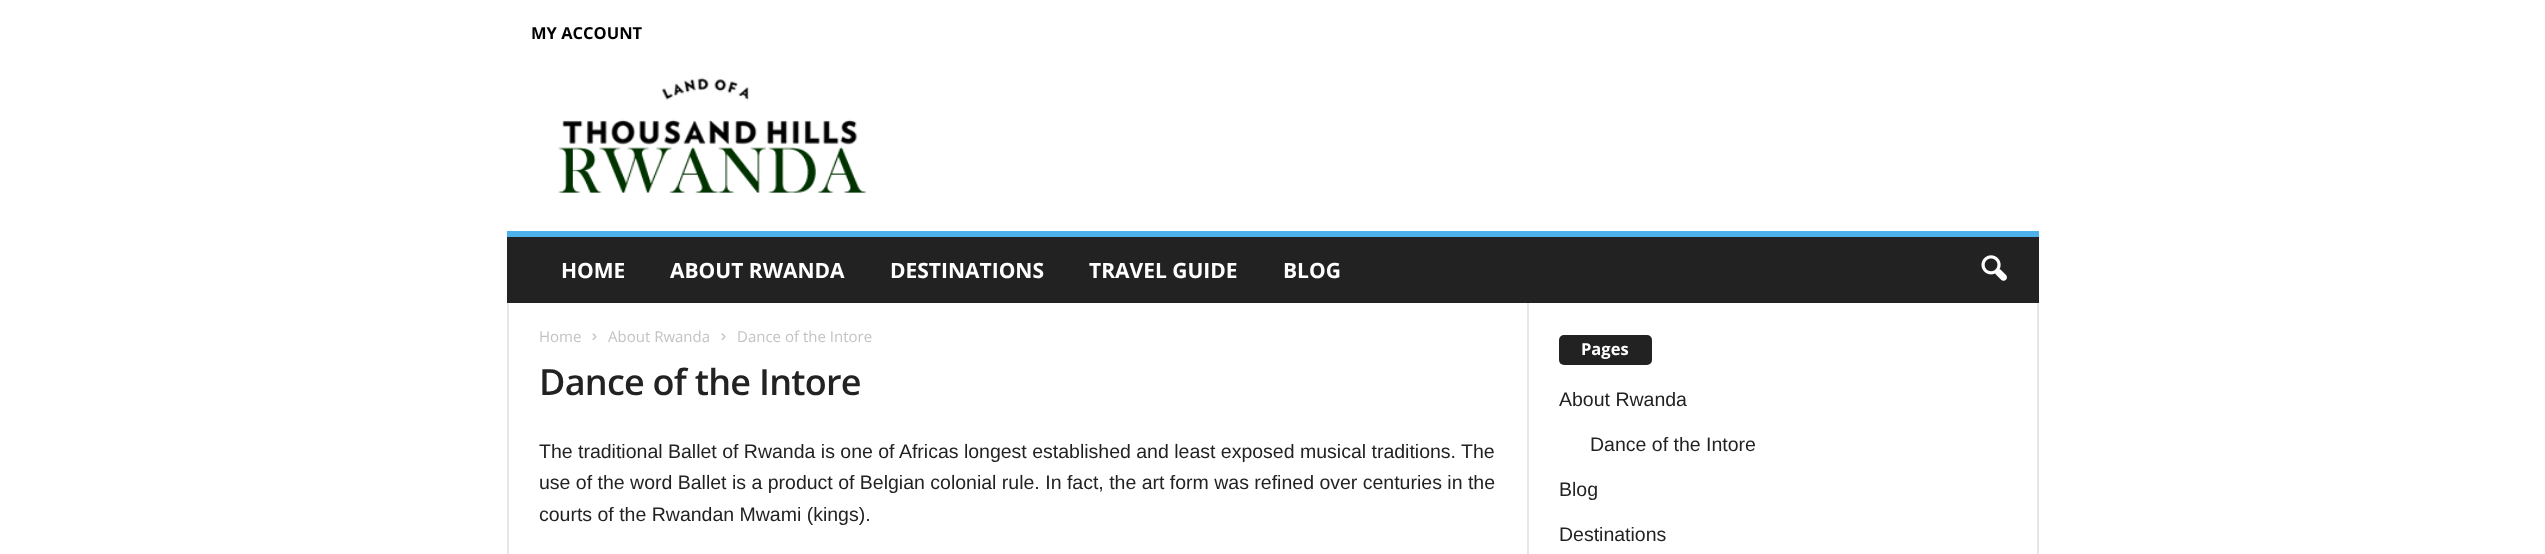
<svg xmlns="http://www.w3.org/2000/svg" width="2545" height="554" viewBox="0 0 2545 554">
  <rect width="100%" height="100%" fill="rgb(255,255,255)"/>
  <text x="531" y="39" font-family="Open Sans" font-size="16.5" font-weight="bold" fill="rgb(0,0,0)">MY ACCOUNT</text>
  <image x="558" y="77" width="308" height="116" href="pic1.png"/>
  <rect x="507" y="237" width="1532" height="66" fill="rgb(34,34,34)"/>
  <rect x="507" y="231" width="1532" height="6" fill="rgb(77,178,236)"/>
  <g font-family="Open Sans" font-size="21" font-weight="bold" fill="rgb(255,255,255)">
    <text x="561" y="278">HOME</text>
    <text x="670" y="278">ABOUT RWANDA</text>
    <text x="890" y="278">DESTINATIONS</text>
    <text x="1089" y="278">TRAVEL GUIDE</text>
    <text x="1283" y="278">BLOG</text>
  </g>
  <image x="1981" y="255" width="26" height="26" href="pic2.png"/>
  <rect x="507" y="303" width="2" height="251" fill="rgb(230,230,230)"/>
  <text x="539" y="342" font-family="Open Sans" font-size="15" fill="rgb(195,195,195)">Home</text>
  <image x="592" y="333" width="5" height="8" href="pic3.png"/>
  <text x="608" y="342" font-family="Open Sans" font-size="15" fill="rgb(195,195,195)">About Rwanda</text>
  <image x="721" y="333" width="5" height="8" href="pic3.png"/>
  <text x="737" y="342" font-family="Open Sans" font-size="15" fill="rgb(195,195,195)">Dance of the Intore</text>
  <text x="539" y="395" font-family="Open Sans" font-size="36" font-weight="600" letter-spacing="-0.75" fill="rgb(34,34,34)">Dance of the Intore</text>
  <g font-family="Liberation Sans" font-size="19.5" fill="rgb(34,34,34)">
    <text>
      <tspan x="539" y="458">The traditional Ballet of Rwanda is one of Africas longest established and least exposed musical traditions. The</tspan>
      <tspan x="539" y="489">use of the word Ballet is a product of Belgian colonial rule. In fact, the art form was refined over centuries in the</tspan>
      <tspan x="539" y="521">courts of the Rwandan Mwami (kings).</tspan>
    </text>
  </g>
  <rect x="1527" y="303" width="2" height="251" fill="rgb(230,230,230)"/>
  <rect x="1559" y="335" width="93" height="30" rx="5" fill="rgb(34,34,34)"/>
  <text x="1581" y="355" font-family="Open Sans" font-size="16.5" font-weight="bold" fill="rgb(255,255,255)">Pages</text>
  <g font-family="Liberation Sans" font-size="19.5" fill="rgb(34,34,34)">
    <text x="1559" y="406">About Rwanda</text>
    <text x="1590" y="451">Dance of the Intore</text>
    <text x="1559" y="496">Blog</text>
    <text x="1559" y="541">Destinations</text>
  </g>
  <rect x="2037" y="303" width="2" height="251" fill="rgb(230,230,230)"/>
</svg>
